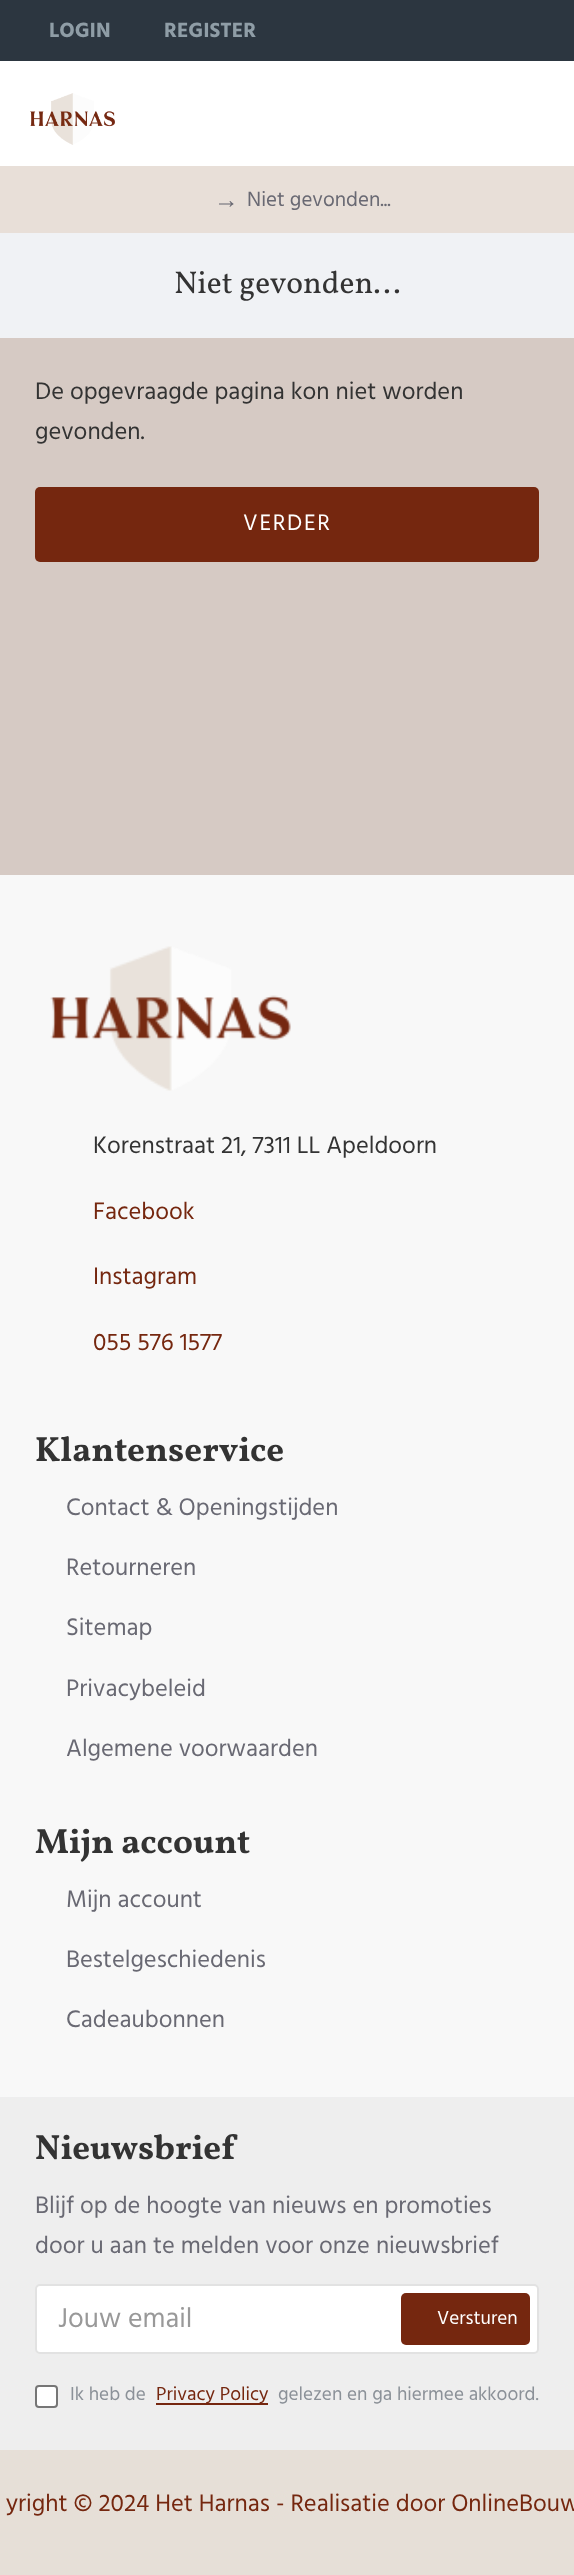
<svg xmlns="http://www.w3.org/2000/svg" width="574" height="2575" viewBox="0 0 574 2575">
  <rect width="100%" height="100%" fill="rgb(214,202,196)"/>
  <rect x="0" y="0" width="574" height="61" fill="rgb(44,54,64)"/>
  <g font-family="Hind Madurai" font-size="21" font-weight="bold" fill="rgb(143,157,166)">
    <text x="49" y="37">LOGIN</text>
    <text x="164" y="37">REGISTER</text>
  </g>
  <rect x="0" y="61" width="574" height="105" fill="rgb(255,255,255)"/>
  <image x="30" y="93" width="85" height="52" href="pic1.png"/>
  <rect x="0" y="166" width="574" height="67" fill="rgb(232,223,216)"/>
  <text x="214" y="208" font-family="Liberation Serif" font-size="24.5" fill="rgb(105,105,115)">→</text>
  <text x="247" y="206" font-family="Hind Madurai" font-size="21" fill="rgb(105,105,115)">Niet gevonden...</text>
  <rect x="0" y="233" width="574" height="105" fill="rgb(240,242,245)"/>
  <text x="174" y="293" font-family="Vollkorn" font-size="31.5" fill="rgb(51,51,51)">Niet gevonden...</text>
  <g font-family="Hind Madurai" font-size="24.5" fill="rgb(51,51,51)">
    <text>
      <tspan x="35" y="399">De opgevraagde pagina kon niet worden</tspan>
      <tspan x="35" y="439">gevonden.</tspan>
    </text>
  </g>
  <rect x="35" y="487" width="504" height="75" rx="5" fill="rgb(117,39,15)"/>
  <text x="243" y="530" font-family="Hind Madurai" font-size="23" letter-spacing="1.75" fill="rgb(255,255,255)">VERDER</text>
  <rect x="0" y="875" width="574" height="1222" fill="rgb(248,248,248)"/>
  <image x="50" y="946" width="241" height="145" href="pic2.png"/>
  <text x="93" y="1153" font-family="Hind Madurai" font-size="24.5" fill="rgb(51,51,51)">Korenstraat 21, 7311 LL Apeldoorn</text>
  <g font-family="Hind Madurai" font-size="24.5" fill="rgb(117,39,15)">
    <text x="93" y="1219">Facebook</text>
    <text x="93" y="1284">Instagram</text>
    <text x="93" y="1350">055 576 1577</text>
  </g>
  <text x="35" y="1461" font-family="Vollkorn" font-size="35" font-weight="bold" fill="rgb(51,51,51)">Klantenservice</text>
  <g font-family="Hind Madurai" font-size="24.5" fill="rgb(105,105,115)">
    <text x="66" y="1515">Contact &amp; Openingstijden</text>
    <text x="66" y="1575">Retourneren</text>
    <text x="66" y="1635">Sitemap</text>
    <text x="66" y="1696">Privacybeleid</text>
    <text x="66" y="1756">Algemene voorwaarden</text>
  </g>
  <text x="35" y="1853" font-family="Vollkorn" font-size="35" font-weight="bold" fill="rgb(51,51,51)">Mijn account</text>
  <g font-family="Hind Madurai" font-size="24.5" fill="rgb(105,105,115)">
    <text x="66" y="1907">Mijn account</text>
    <text x="66" y="1967">Bestelgeschiedenis</text>
    <text x="66" y="2027">Cadeaubonnen</text>
  </g>
  <rect x="0" y="2097" width="574" height="353" fill="rgb(238,238,238)"/>
  <text x="35" y="2159" font-family="Vollkorn" font-size="35" font-weight="bold" fill="rgb(51,51,51)">Nieuwsbrief</text>
  <g font-family="Hind Madurai" font-size="24.5" fill="rgb(105,105,115)">
    <text>
      <tspan x="35" y="2213">Blijf op de hoogte van nieuws en promoties</tspan>
      <tspan x="35" y="2253">door u aan te melden voor onze nieuwsbrief</tspan>
    </text>
  </g>
  <rect x="36" y="2285" width="502" height="68" rx="4" fill="rgb(255,255,255)" stroke="rgb(226,226,226)" stroke-width="2"/>
  <text x="58" y="2327" font-family="Hind Madurai" font-size="28" fill="rgb(153,153,153)">Jouw email</text>
  <rect x="401" y="2293" width="129" height="52" rx="5" fill="rgb(117,39,15)"/>
  <text x="437" y="2324" font-family="Hind Madurai" font-size="19.25" fill="rgb(255,255,255)">Versturen</text>
  <rect x="36" y="2386" width="21" height="21" rx="3" fill="rgb(255,255,255)" stroke="rgb(118,118,118)" stroke-width="2"/>
  <text x="70" y="2400" font-family="Hind Madurai" font-size="19.25" fill="rgb(139,145,152)">Ik heb de</text>
  <rect x="156" y="2403" width="112" height="2" fill="rgb(117,39,15)"/>
  <text x="156" y="2400" font-family="Hind Madurai" font-size="19.25" fill="rgb(117,39,15)">Privacy Policy</text>
  <text x="278" y="2400" font-family="Hind Madurai" font-size="19.25" fill="rgb(139,145,152)">gelezen en ga hiermee akkoord.</text>
  <rect x="0" y="2450" width="574" height="125" fill="rgb(230,223,215)"/>
  <text x="6" y="2511" font-family="Hind Madurai" font-size="24.5" fill="rgb(117,39,15)">yright ©︎ 2024 Het Harnas - Realisatie door OnlineBouw</text>
</svg>
